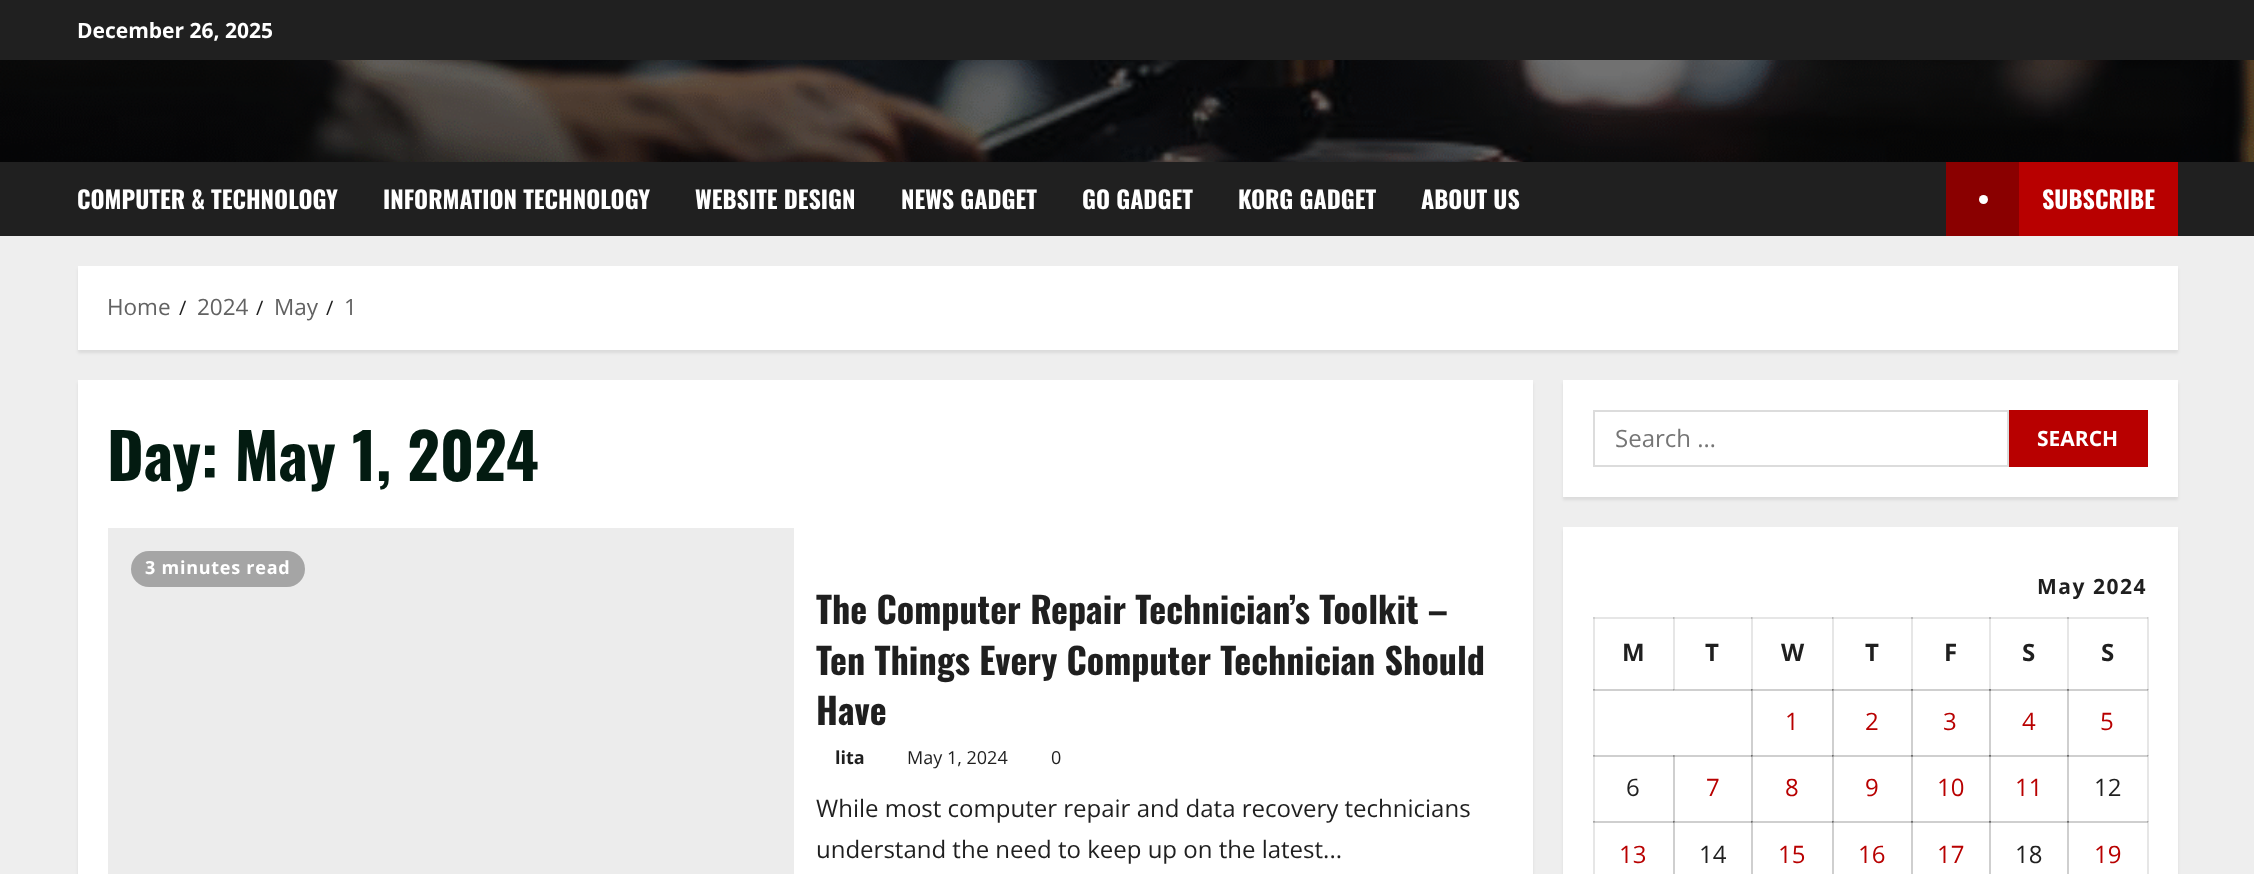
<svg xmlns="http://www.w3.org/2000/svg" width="2254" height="874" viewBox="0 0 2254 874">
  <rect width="100%" height="100%" fill="rgb(238,238,238)"/>
  <rect x="0" y="0" width="2254" height="60" fill="rgb(32,32,32)"/>
  <text x="77" y="38" font-family="Open Sans" font-size="21" font-weight="bold" fill="rgb(255,255,255)">December 26, 2025</text>
  <image x="0" y="60" width="2254" height="102" href="pic1.png"/>
  <rect x="0" y="162" width="2254" height="74" fill="rgb(32,32,32)"/>
  <g font-family="Oswald" font-size="24" font-weight="bold" fill="rgb(255,255,255)">
    <text x="77" y="209">COMPUTER &amp; TECHNOLOGY</text>
    <text x="383" y="209">INFORMATION TECHNOLOGY</text>
    <text x="695" y="209">WEBSITE DESIGN</text>
    <text x="901" y="209">NEWS GADGET</text>
    <text x="1082" y="209">GO GADGET</text>
    <text x="1238" y="209">KORG GADGET</text>
    <text x="1421" y="209">ABOUT US</text>
  </g>
  <rect x="2019" y="162" width="159" height="74" fill="rgb(184,0,0)"/>
  <rect x="1946" y="162" width="73" height="74" fill="rgb(138,0,0)"/>
  <circle cx="1983.5" cy="199.5" r="4.5" fill="rgb(255,255,255)"/>
  <text x="2042" y="209" font-family="Oswald" font-size="24" font-weight="bold" fill="rgb(255,255,255)">SUBSCRIBE</text>
  <rect x="78" y="269" width="2100" height="84" fill="rgba(0,0,0,0.08)" filter="blur(1.5px)"/>
  <rect x="78" y="266" width="2100" height="84" fill="rgb(255,255,255)"/>
  <text x="107" y="315" font-family="Open Sans" font-size="22.5" fill="rgb(98,98,98)">Home</text>
  <text x="179" y="315" font-family="Open Sans" font-size="20" fill="rgb(31,31,31)">/</text>
  <text x="197" y="315" font-family="Open Sans" font-size="22.5" fill="rgb(98,98,98)">2024</text>
  <text x="256" y="315" font-family="Open Sans" font-size="20" fill="rgb(31,31,31)">/</text>
  <text x="274" y="315" font-family="Open Sans" font-size="22.5" fill="rgb(98,98,98)">May</text>
  <text x="326" y="315" font-family="Open Sans" font-size="20" fill="rgb(31,31,31)">/</text>
  <text x="344" y="315" font-family="Open Sans" font-size="22.5" fill="rgb(98,98,98)">1</text>
  <rect x="78" y="383" width="1455" height="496" fill="rgba(0,0,0,0.08)" filter="blur(1.5px)"/>
  <rect x="78" y="380" width="1455" height="494" fill="rgb(255,255,255)"/>
  <text x="107" y="481" font-family="Oswald" font-size="63" font-weight="bold" fill="rgb(3,27,17)">Day: May 1, 2024</text>
  <rect x="108" y="528" width="686" height="346" fill="rgb(236,236,236)"/>
  <rect x="131" y="551" width="174" height="36" rx="18" fill="rgb(165,165,165)"/>
  <text x="145" y="574" font-family="Open Sans" font-size="18" font-weight="bold" letter-spacing="0.75" fill="rgb(255,255,255)">3 minutes read</text>
  <g font-family="Oswald" font-size="36" font-weight="bold" fill="rgb(31,31,31)">
    <text>
      <tspan x="816" y="624">The Computer Repair Technician’s Toolkit –</tspan>
      <tspan x="816" y="675">Ten Things Every Computer Technician Should</tspan>
      <tspan x="816" y="725">Have</tspan>
    </text>
  </g>
  <text x="835" y="764" font-family="Open Sans" font-size="18" font-weight="bold" fill="rgb(31,31,31)">lita</text>
  <g font-family="Open Sans" font-size="18" fill="rgb(31,31,31)">
    <text x="907" y="764">May 1, 2024</text>
    <text x="1051" y="764">0</text>
  </g>
  <g font-family="Open Sans" font-size="24" fill="rgb(31,31,31)">
    <text>
      <tspan x="816" y="817">While most computer repair and data recovery technicians</tspan>
      <tspan x="816" y="858">understand the need to keep up on the latest...</tspan>
    </text>
  </g>
  <rect x="1563" y="383" width="615" height="117" fill="rgba(0,0,0,0.08)" filter="blur(1.5px)"/>
  <rect x="1563" y="380" width="615" height="117" fill="rgb(255,255,255)"/>
  <rect x="1594" y="411" width="414" height="55" fill="none" stroke="rgb(220,220,220)" stroke-width="2"/>
  <text x="1615" y="447" font-family="Open Sans" font-size="24" fill="rgb(117,117,117)">Search …</text>
  <rect x="2009" y="410" width="139" height="57" fill="rgb(184,0,0)"/>
  <text x="2037" y="446" font-family="Open Sans" font-size="21" font-weight="bold" fill="rgb(255,255,255)">SEARCH</text>
  <rect x="1563" y="530" width="615" height="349" fill="rgba(0,0,0,0.08)" filter="blur(1.5px)"/>
  <rect x="1563" y="527" width="615" height="347" fill="rgb(255,255,255)"/>
  <rect x="1593" y="617" width="2" height="257" fill="rgb(230,230,230)"/>
  <rect x="1593" y="617" width="81" height="2" fill="rgb(230,230,230)"/>
  <rect x="1593" y="617" width="2" height="2" fill="rgb(207,207,207)"/>
  <rect x="1673" y="617" width="2" height="73" fill="rgb(230,230,230)"/>
  <rect x="1673" y="617" width="79" height="2" fill="rgb(230,230,230)"/>
  <rect x="1673" y="617" width="2" height="2" fill="rgb(207,207,207)"/>
  <rect x="1673" y="617" width="1" height="2" fill="rgb(186,186,186)"/>
  <rect x="1751" y="617" width="2" height="73" fill="rgb(230,230,230)"/>
  <rect x="1751" y="617" width="82" height="2" fill="rgb(230,230,230)"/>
  <rect x="1751" y="617" width="2" height="2" fill="rgb(207,207,207)"/>
  <rect x="1751" y="617" width="1" height="2" fill="rgb(186,186,186)"/>
  <rect x="1832" y="617" width="2" height="73" fill="rgb(230,230,230)"/>
  <rect x="1832" y="617" width="81" height="2" fill="rgb(230,230,230)"/>
  <rect x="1832" y="617" width="2" height="2" fill="rgb(207,207,207)"/>
  <rect x="1832" y="617" width="1" height="2" fill="rgb(186,186,186)"/>
  <rect x="1911" y="617" width="2" height="73" fill="rgb(230,230,230)"/>
  <rect x="1911" y="617" width="80" height="2" fill="rgb(230,230,230)"/>
  <rect x="1911" y="617" width="2" height="2" fill="rgb(186,186,186)"/>
  <rect x="1989" y="617" width="2" height="73" fill="rgb(230,230,230)"/>
  <rect x="1989" y="617" width="80" height="2" fill="rgb(230,230,230)"/>
  <rect x="1989" y="617" width="2" height="2" fill="rgb(186,186,186)"/>
  <rect x="2067" y="617" width="2" height="73" fill="rgb(230,230,230)"/>
  <rect x="2147" y="617" width="2" height="257" fill="rgb(230,230,230)"/>
  <rect x="1593" y="689" width="159" height="2" fill="rgb(207,207,207)"/>
  <rect x="1673" y="689" width="1" height="2" fill="rgb(186,186,186)"/>
  <rect x="1673" y="689" width="2" height="1" fill="rgb(186,186,186)"/>
  <rect x="1673" y="689" width="1" height="1" fill="rgb(167,167,167)"/>
  <rect x="1593" y="690" width="2" height="1" fill="rgb(186,186,186)"/>
  <rect x="1593" y="689" width="2" height="1" fill="rgb(167,167,167)"/>
  <rect x="1751" y="689" width="2" height="67" fill="rgb(207,207,207)"/>
  <rect x="1751" y="689" width="82" height="2" fill="rgb(207,207,207)"/>
  <rect x="1751" y="690" width="2" height="1" fill="rgb(167,167,167)"/>
  <rect x="1751" y="689" width="2" height="1" fill="rgb(150,150,150)"/>
  <rect x="1751" y="689" width="1" height="2" fill="rgb(135,135,135)"/>
  <rect x="1751" y="689" width="1" height="1" fill="rgb(122,122,122)"/>
  <rect x="1832" y="689" width="2" height="67" fill="rgb(207,207,207)"/>
  <rect x="1832" y="689" width="81" height="2" fill="rgb(207,207,207)"/>
  <rect x="1832" y="690" width="2" height="1" fill="rgb(167,167,167)"/>
  <rect x="1832" y="689" width="2" height="1" fill="rgb(150,150,150)"/>
  <rect x="1832" y="689" width="1" height="2" fill="rgb(135,135,135)"/>
  <rect x="1832" y="689" width="1" height="1" fill="rgb(122,122,122)"/>
  <rect x="1911" y="689" width="2" height="67" fill="rgb(207,207,207)"/>
  <rect x="1911" y="689" width="80" height="2" fill="rgb(207,207,207)"/>
  <rect x="1911" y="690" width="2" height="1" fill="rgb(135,135,135)"/>
  <rect x="1911" y="689" width="2" height="1" fill="rgb(122,122,122)"/>
  <rect x="1989" y="689" width="2" height="67" fill="rgb(207,207,207)"/>
  <rect x="1989" y="689" width="80" height="2" fill="rgb(207,207,207)"/>
  <rect x="1989" y="690" width="2" height="1" fill="rgb(135,135,135)"/>
  <rect x="1989" y="689" width="2" height="1" fill="rgb(122,122,122)"/>
  <rect x="2067" y="689" width="2" height="67" fill="rgb(207,207,207)"/>
  <rect x="2147" y="689" width="2" height="1" fill="rgb(207,207,207)"/>
  <rect x="1593" y="755" width="81" height="2" fill="rgb(207,207,207)"/>
  <rect x="1593" y="756" width="2" height="1" fill="rgb(186,186,186)"/>
  <rect x="1593" y="755" width="2" height="1" fill="rgb(167,167,167)"/>
  <rect x="1673" y="755" width="2" height="67" fill="rgb(207,207,207)"/>
  <rect x="1673" y="755" width="79" height="2" fill="rgb(207,207,207)"/>
  <rect x="1673" y="755" width="2" height="2" fill="rgb(167,167,167)"/>
  <rect x="1673" y="755" width="1" height="2" fill="rgb(150,150,150)"/>
  <rect x="1751" y="755" width="2" height="67" fill="rgb(207,207,207)"/>
  <rect x="1751" y="755" width="82" height="2" fill="rgb(207,207,207)"/>
  <rect x="1751" y="756" width="2" height="1" fill="rgb(167,167,167)"/>
  <rect x="1751" y="755" width="2" height="1" fill="rgb(135,135,135)"/>
  <rect x="1751" y="755" width="1" height="2" fill="rgb(135,135,135)"/>
  <rect x="1751" y="755" width="1" height="1" fill="rgb(110,110,110)"/>
  <rect x="1832" y="755" width="2" height="67" fill="rgb(207,207,207)"/>
  <rect x="1832" y="755" width="81" height="2" fill="rgb(207,207,207)"/>
  <rect x="1832" y="756" width="2" height="1" fill="rgb(167,167,167)"/>
  <rect x="1832" y="755" width="2" height="1" fill="rgb(135,135,135)"/>
  <rect x="1832" y="755" width="1" height="2" fill="rgb(135,135,135)"/>
  <rect x="1832" y="755" width="1" height="1" fill="rgb(110,110,110)"/>
  <rect x="1911" y="755" width="2" height="67" fill="rgb(207,207,207)"/>
  <rect x="1911" y="755" width="80" height="2" fill="rgb(207,207,207)"/>
  <rect x="1911" y="756" width="2" height="1" fill="rgb(135,135,135)"/>
  <rect x="1911" y="755" width="2" height="1" fill="rgb(110,110,110)"/>
  <rect x="1989" y="755" width="2" height="67" fill="rgb(207,207,207)"/>
  <rect x="1989" y="755" width="80" height="2" fill="rgb(207,207,207)"/>
  <rect x="1989" y="756" width="2" height="1" fill="rgb(135,135,135)"/>
  <rect x="1989" y="755" width="2" height="1" fill="rgb(110,110,110)"/>
  <rect x="2067" y="755" width="2" height="67" fill="rgb(207,207,207)"/>
  <rect x="2147" y="755" width="2" height="1" fill="rgb(207,207,207)"/>
  <rect x="1593" y="821" width="81" height="2" fill="rgb(207,207,207)"/>
  <rect x="1593" y="822" width="2" height="1" fill="rgb(186,186,186)"/>
  <rect x="1593" y="821" width="2" height="1" fill="rgb(167,167,167)"/>
  <rect x="1673" y="821" width="2" height="53" fill="rgb(207,207,207)"/>
  <rect x="1673" y="821" width="79" height="2" fill="rgb(207,207,207)"/>
  <rect x="1673" y="822" width="2" height="1" fill="rgb(167,167,167)"/>
  <rect x="1673" y="821" width="2" height="1" fill="rgb(135,135,135)"/>
  <rect x="1673" y="821" width="1" height="2" fill="rgb(135,135,135)"/>
  <rect x="1673" y="821" width="1" height="1" fill="rgb(110,110,110)"/>
  <rect x="1751" y="821" width="2" height="53" fill="rgb(207,207,207)"/>
  <rect x="1751" y="821" width="82" height="2" fill="rgb(207,207,207)"/>
  <rect x="1751" y="822" width="2" height="1" fill="rgb(167,167,167)"/>
  <rect x="1751" y="821" width="2" height="1" fill="rgb(135,135,135)"/>
  <rect x="1751" y="821" width="1" height="2" fill="rgb(135,135,135)"/>
  <rect x="1751" y="821" width="1" height="1" fill="rgb(110,110,110)"/>
  <rect x="1832" y="821" width="2" height="53" fill="rgb(207,207,207)"/>
  <rect x="1832" y="821" width="81" height="2" fill="rgb(207,207,207)"/>
  <rect x="1832" y="822" width="2" height="1" fill="rgb(167,167,167)"/>
  <rect x="1832" y="821" width="2" height="1" fill="rgb(135,135,135)"/>
  <rect x="1832" y="821" width="1" height="2" fill="rgb(135,135,135)"/>
  <rect x="1832" y="821" width="1" height="1" fill="rgb(110,110,110)"/>
  <rect x="1911" y="821" width="2" height="53" fill="rgb(207,207,207)"/>
  <rect x="1911" y="821" width="80" height="2" fill="rgb(207,207,207)"/>
  <rect x="1911" y="822" width="2" height="1" fill="rgb(135,135,135)"/>
  <rect x="1911" y="821" width="2" height="1" fill="rgb(110,110,110)"/>
  <rect x="1989" y="821" width="2" height="53" fill="rgb(207,207,207)"/>
  <rect x="1989" y="821" width="80" height="2" fill="rgb(207,207,207)"/>
  <rect x="1989" y="822" width="2" height="1" fill="rgb(135,135,135)"/>
  <rect x="1989" y="821" width="2" height="1" fill="rgb(110,110,110)"/>
  <rect x="2067" y="821" width="2" height="53" fill="rgb(207,207,207)"/>
  <rect x="2147" y="821" width="2" height="1" fill="rgb(207,207,207)"/>
  <text x="2037" y="594" font-family="Open Sans" font-size="21" font-weight="bold" letter-spacing="1.5" fill="rgb(31,31,31)">May 2024</text>
  <g font-family="Open Sans" font-size="24" font-weight="bold" fill="rgb(31,31,31)">
    <text x="1622" y="661">M</text>
    <text x="1705" y="661">T</text>
    <text x="1781" y="661">W</text>
    <text x="1865" y="661">T</text>
    <text x="1944" y="661">F</text>
    <text x="2022" y="661">S</text>
  </g>
  <rect x="2067" y="617" width="81" height="2" fill="rgb(230,230,230)"/>
  <rect x="2067" y="617" width="2" height="2" fill="rgb(186,186,186)"/>
  <rect x="2147" y="617" width="1" height="2" fill="rgb(207,207,207)"/>
  <text x="2101" y="661" font-family="Open Sans" font-size="24" font-weight="bold" fill="rgb(31,31,31)">S</text>
  <g font-family="Open Sans" font-size="24" fill="rgb(184,0,0)">
    <text x="1785" y="730">1</text>
    <text x="1865" y="730">2</text>
    <text x="1943" y="730">3</text>
    <text x="2022" y="730">4</text>
  </g>
  <rect x="2067" y="689" width="81" height="2" fill="rgb(207,207,207)"/>
  <rect x="2067" y="690" width="2" height="1" fill="rgb(135,135,135)"/>
  <rect x="2067" y="689" width="2" height="1" fill="rgb(122,122,122)"/>
  <rect x="2147" y="689" width="1" height="2" fill="rgb(186,186,186)"/>
  <rect x="2147" y="689" width="1" height="1" fill="rgb(167,167,167)"/>
  <text x="2100" y="730" font-family="Open Sans" font-size="24" fill="rgb(184,0,0)">5</text>
  <text x="1626" y="796" font-family="Open Sans" font-size="24" fill="rgb(31,31,31)">6</text>
  <g font-family="Open Sans" font-size="24" fill="rgb(184,0,0)">
    <text x="1706" y="796">7</text>
    <text x="1785" y="796">8</text>
    <text x="1865" y="796">9</text>
    <text x="1937" y="796">10</text>
    <text x="2015" y="796">11</text>
  </g>
  <rect x="2067" y="755" width="81" height="2" fill="rgb(207,207,207)"/>
  <rect x="2067" y="756" width="2" height="1" fill="rgb(135,135,135)"/>
  <rect x="2067" y="755" width="2" height="1" fill="rgb(110,110,110)"/>
  <rect x="2147" y="755" width="1" height="2" fill="rgb(186,186,186)"/>
  <rect x="2147" y="755" width="1" height="1" fill="rgb(167,167,167)"/>
  <text x="2094" y="796" font-family="Open Sans" font-size="24" fill="rgb(31,31,31)">12</text>
  <text x="1619" y="863" font-family="Open Sans" font-size="24" fill="rgb(184,0,0)">13</text>
  <text x="1699" y="863" font-family="Open Sans" font-size="24" fill="rgb(31,31,31)">14</text>
  <g font-family="Open Sans" font-size="24" fill="rgb(184,0,0)">
    <text x="1778" y="863">15</text>
    <text x="1858" y="863">16</text>
    <text x="1937" y="863">17</text>
  </g>
  <text x="2015" y="863" font-family="Open Sans" font-size="24" fill="rgb(31,31,31)">18</text>
  <rect x="2067" y="821" width="81" height="2" fill="rgb(207,207,207)"/>
  <rect x="2067" y="822" width="2" height="1" fill="rgb(135,135,135)"/>
  <rect x="2067" y="821" width="2" height="1" fill="rgb(110,110,110)"/>
  <rect x="2147" y="821" width="1" height="2" fill="rgb(186,186,186)"/>
  <rect x="2147" y="821" width="1" height="1" fill="rgb(167,167,167)"/>
  <text x="2094" y="863" font-family="Open Sans" font-size="24" fill="rgb(184,0,0)">19</text>
</svg>
